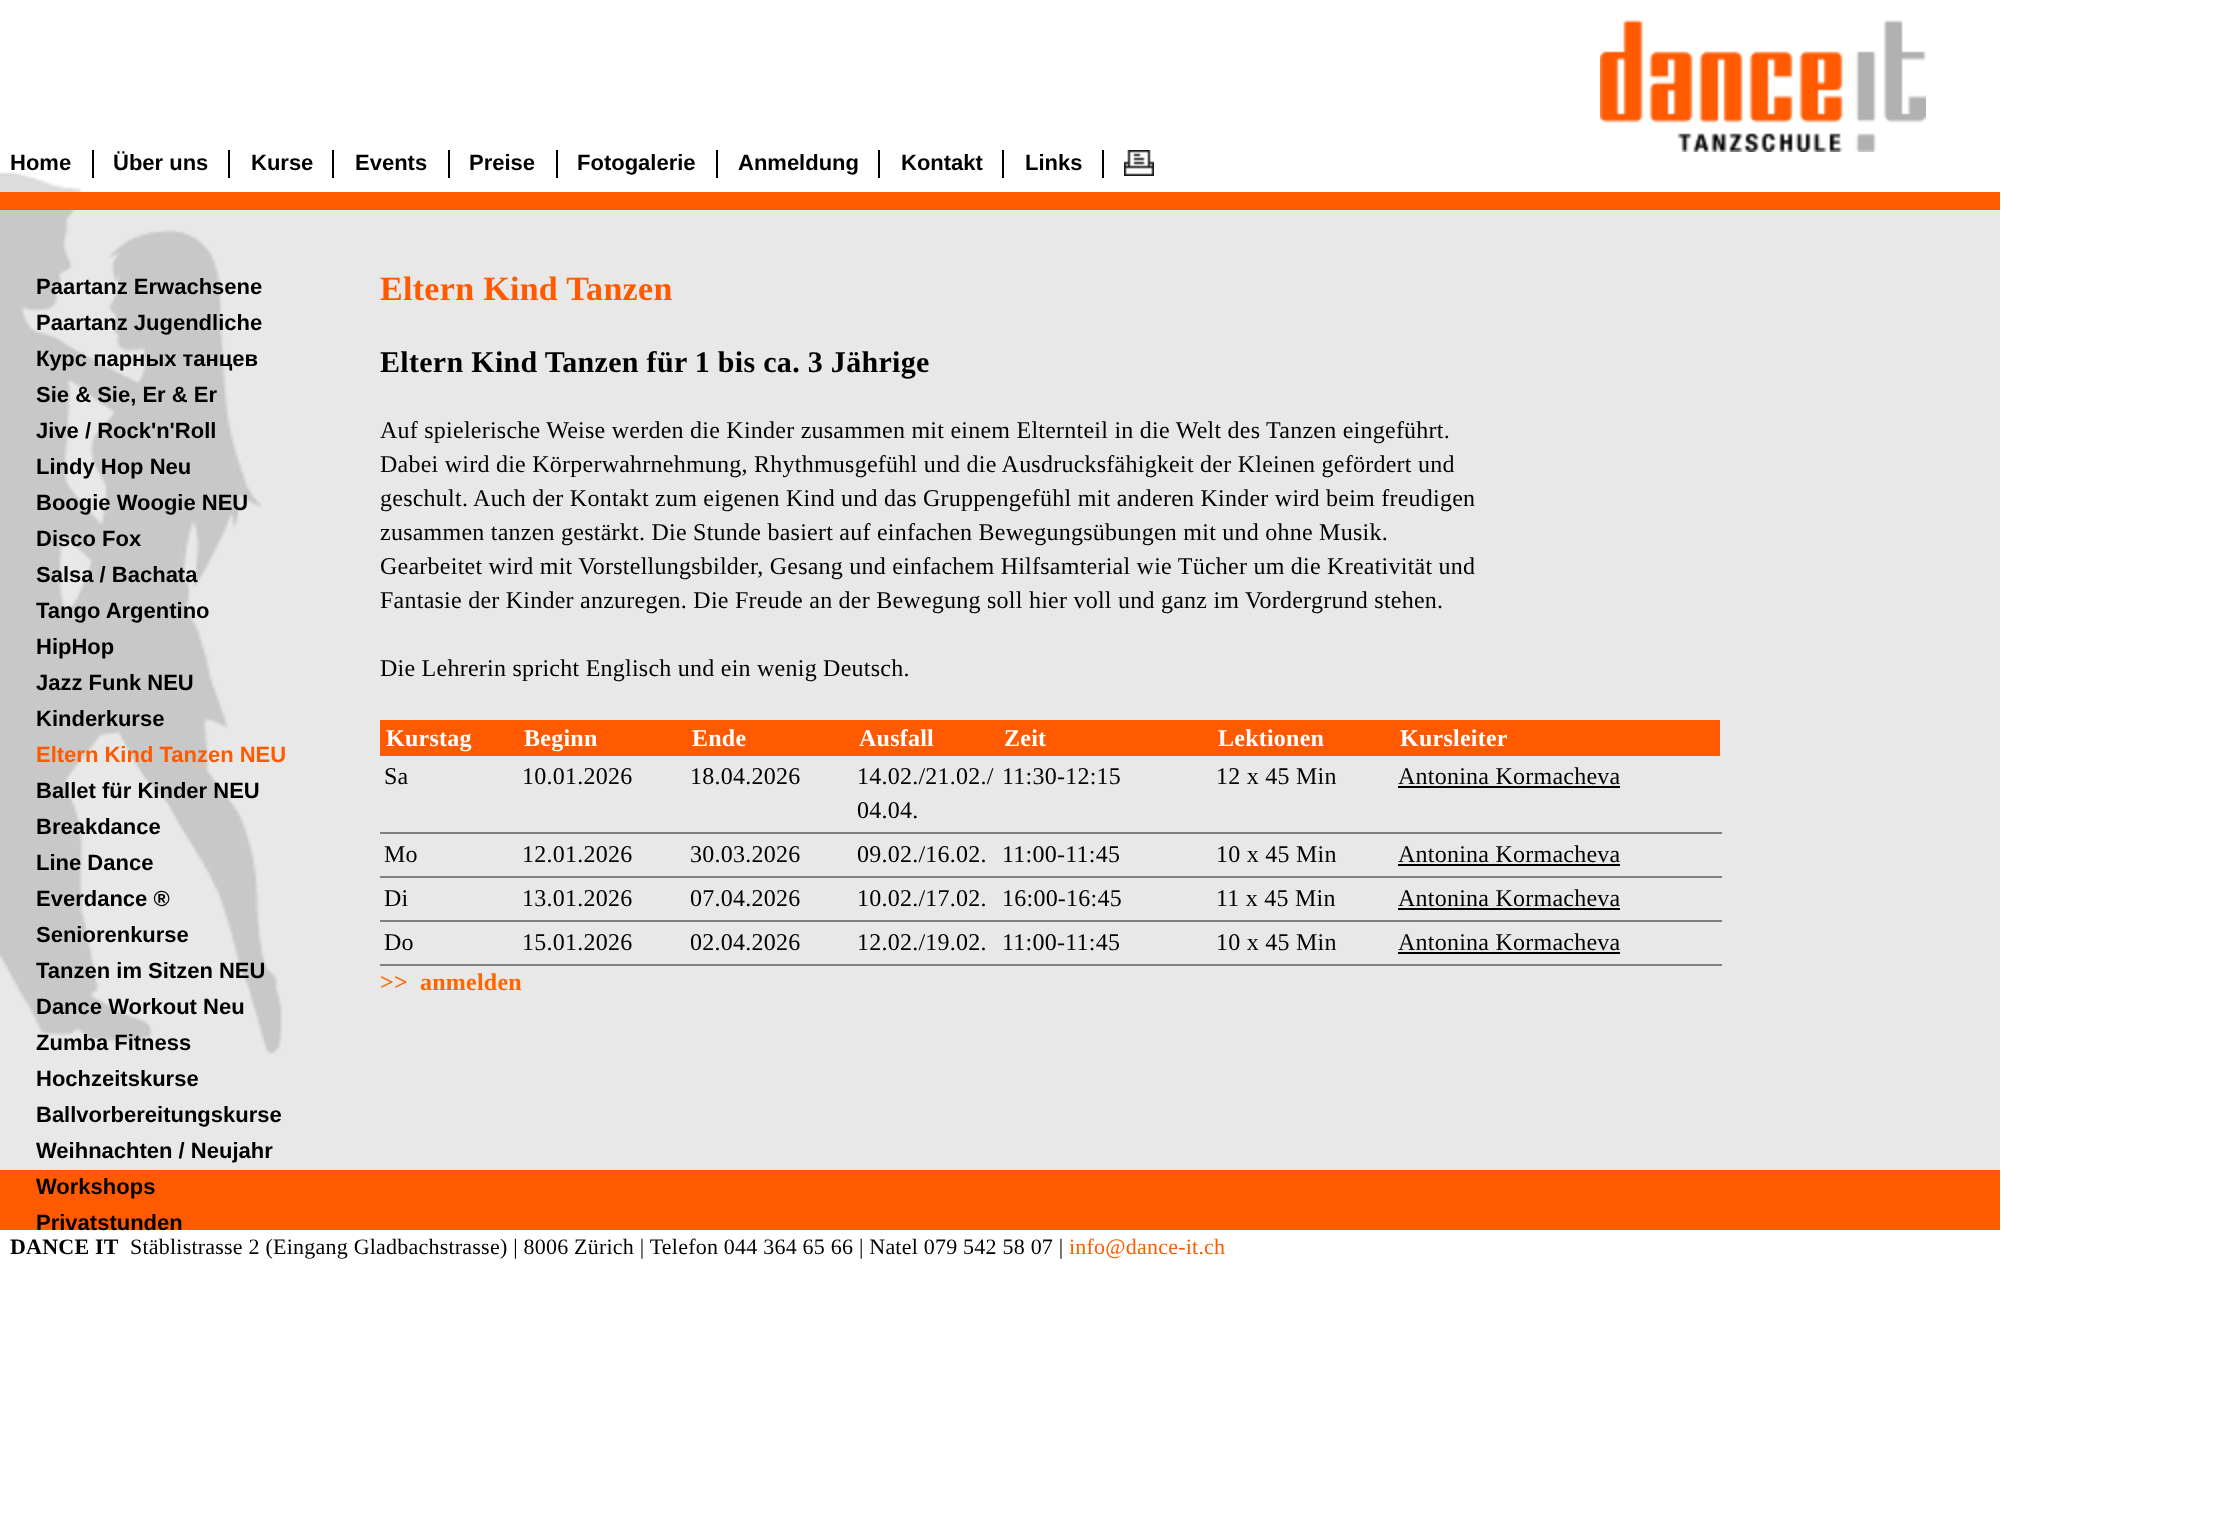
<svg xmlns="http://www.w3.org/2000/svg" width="2237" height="1527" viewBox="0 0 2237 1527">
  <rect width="100%" height="100%" fill="rgb(255,255,255)"/>
  <image x="1600" y="20" width="326" height="132" href="pic1.png"/>
  <rect x="0" y="210" width="2000" height="960" fill="rgb(232,232,232)"/>
  <image x="0" y="172" width="283" height="882" href="pic3.png"/>
  <rect x="0" y="192" width="2000" height="18" fill="rgb(255,90,0)"/>
  <text x="10" y="170" font-family="Liberation Sans" font-size="22" font-weight="bold" fill="rgb(0,0,0)">Home</text>
  <rect x="92" y="150" width="2" height="28" fill="rgb(0,0,0)"/>
  <text x="113" y="170" font-family="Liberation Sans" font-size="22" font-weight="bold" fill="rgb(0,0,0)">Über uns</text>
  <rect x="228" y="150" width="2" height="28" fill="rgb(0,0,0)"/>
  <text x="251" y="170" font-family="Liberation Sans" font-size="22" font-weight="bold" fill="rgb(0,0,0)">Kurse</text>
  <rect x="332" y="150" width="2" height="28" fill="rgb(0,0,0)"/>
  <g font-family="Liberation Sans" font-size="22" font-weight="bold" fill="rgb(0,0,0)">
    <text>
      <tspan x="36" y="294">Paartanz Erwachsene</tspan>
      <tspan x="36" y="330">Paartanz Jugendliche</tspan>
      <tspan x="36" y="366">Курс парных танцев</tspan>
      <tspan x="36" y="402">Sie &amp; Sie, Er &amp; Er</tspan>
      <tspan x="36" y="438">Jive / Rock'n'Roll</tspan>
      <tspan x="36" y="474">Lindy Hop Neu</tspan>
      <tspan x="36" y="510">Boogie Woogie NEU</tspan>
      <tspan x="36" y="546">Disco Fox</tspan>
      <tspan x="36" y="582">Salsa / Bachata</tspan>
      <tspan x="36" y="618">Tango Argentino</tspan>
      <tspan x="36" y="654">HipHop</tspan>
      <tspan x="36" y="690">Jazz Funk NEU</tspan>
      <tspan x="36" y="726">Kinderkurse</tspan>
    </text>
  </g>
  <text x="36" y="762" font-family="Liberation Sans" font-size="22" font-weight="bold" fill="rgb(255,90,0)">Eltern Kind Tanzen NEU</text>
  <g font-family="Liberation Sans" font-size="22" font-weight="bold" fill="rgb(0,0,0)">
    <text>
      <tspan x="36" y="798">Ballet für Kinder NEU</tspan>
      <tspan x="36" y="834">Breakdance</tspan>
      <tspan x="36" y="870">Line Dance</tspan>
      <tspan x="36" y="906">Everdance ®</tspan>
      <tspan x="36" y="942">Seniorenkurse</tspan>
      <tspan x="36" y="978">Tanzen im Sitzen NEU</tspan>
      <tspan x="36" y="1014">Dance Workout Neu</tspan>
      <tspan x="36" y="1050">Zumba Fitness</tspan>
      <tspan x="36" y="1086">Hochzeitskurse</tspan>
      <tspan x="36" y="1122">Ballvorbereitungskurse</tspan>
      <tspan x="36" y="1158">Weihnachten / Neujahr</tspan>
    </text>
  </g>
  <rect x="0" y="1170" width="2000" height="60" fill="rgb(255,90,0)"/>
  <g font-family="Liberation Sans" font-size="22" font-weight="bold" fill="rgb(0,0,0)">
    <text>
      <tspan x="36" y="1194">Workshops</tspan>
      <tspan x="36" y="1230">Privatstunden</tspan>
    </text>
    <text x="355" y="170">Events</text>
  </g>
  <rect x="448" y="150" width="2" height="28" fill="rgb(0,0,0)"/>
  <text x="469" y="170" font-family="Liberation Sans" font-size="22" font-weight="bold" fill="rgb(0,0,0)">Preise</text>
  <rect x="556" y="150" width="2" height="28" fill="rgb(0,0,0)"/>
  <text x="577" y="170" font-family="Liberation Sans" font-size="22" font-weight="bold" fill="rgb(0,0,0)">Fotogalerie</text>
  <rect x="716" y="150" width="2" height="28" fill="rgb(0,0,0)"/>
  <text x="738" y="170" font-family="Liberation Sans" font-size="22" font-weight="bold" fill="rgb(0,0,0)">Anmeldung</text>
  <rect x="878" y="150" width="2" height="28" fill="rgb(0,0,0)"/>
  <text x="901" y="170" font-family="Liberation Sans" font-size="22" font-weight="bold" fill="rgb(0,0,0)">Kontakt</text>
  <rect x="1002" y="150" width="2" height="28" fill="rgb(0,0,0)"/>
  <text x="1025" y="170" font-family="Liberation Sans" font-size="22" font-weight="bold" fill="rgb(0,0,0)">Links</text>
  <rect x="1102" y="150" width="2" height="28" fill="rgb(0,0,0)"/>
  <image x="1124" y="150" width="30" height="26" href="pic2.png"/>
  <text x="380" y="300" font-family="Liberation Serif" font-size="34" font-weight="bold" letter-spacing="0.3" fill="rgb(255,90,0)">Eltern Kind Tanzen</text>
  <text x="380" y="372" font-family="Liberation Serif" font-size="30" font-weight="bold" letter-spacing="0.3" fill="rgb(0,0,0)">Eltern Kind Tanzen für 1 bis ca. 3 Jährige</text>
  <g font-family="Liberation Serif" font-size="24" letter-spacing="0.24" fill="rgb(0,0,0)">
    <text>
      <tspan x="380" y="438">Auf spielerische Weise werden die Kinder zusammen mit einem Elternteil in die Welt des Tanzen eingeführt.</tspan>
      <tspan x="380" y="472">Dabei wird die Körperwahrnehmung, Rhythmusgefühl und die Ausdrucksfähigkeit der Kleinen gefördert und</tspan>
      <tspan x="380" y="506">geschult. Auch der Kontakt zum eigenen Kind und das Gruppengefühl mit anderen Kinder wird beim freudigen</tspan>
      <tspan x="380" y="540">zusammen tanzen gestärkt. Die Stunde basiert auf einfachen Bewegungsübungen mit und ohne Musik.</tspan>
      <tspan x="380" y="574">Gearbeitet wird mit Vorstellungsbilder, Gesang und einfachem Hilfsamterial wie Tücher um die Kreativität und</tspan>
      <tspan x="380" y="608">Fantasie der Kinder anzuregen. Die Freude an der Bewegung soll hier voll und ganz im Vordergrund stehen.</tspan>
    </text>
    <text x="380" y="676">Die Lehrerin spricht Englisch und ein wenig Deutsch.</text>
  </g>
  <rect x="380" y="720" width="1340" height="36" fill="rgb(255,90,0)"/>
  <g font-family="Liberation Serif" font-size="24" font-weight="bold" letter-spacing="0.24" fill="rgb(255,255,255)">
    <text x="386" y="746">Kurstag</text>
    <text x="524" y="746">Beginn</text>
    <text x="692" y="746">Ende</text>
    <text x="859" y="746">Ausfall</text>
    <text x="1004" y="746">Zeit</text>
    <text x="1218" y="746">Lektionen</text>
    <text x="1400" y="746">Kursleiter</text>
  </g>
  <g font-family="Liberation Serif" font-size="24" letter-spacing="0.24" fill="rgb(0,0,0)">
    <text x="384" y="784">Sa</text>
    <text x="522" y="784">10.01.2026</text>
    <text x="690" y="784">18.04.2026</text>
    <text>
      <tspan x="857" y="784">14.02./21.02./</tspan>
      <tspan x="857" y="818">04.04.</tspan>
    </text>
    <text x="1002" y="784">11:30-12:15</text>
    <text x="1216" y="784">12 x 45 Min</text>
  </g>
  <rect x="380" y="832" width="1342" height="2" fill="rgb(128,128,128)"/>
  <text x="1398" y="784" font-family="Liberation Serif" font-size="24" letter-spacing="0.24" fill="rgb(0,0,0)">Antonina Kormacheva</text>
  <rect x="1398" y="786" width="222" height="2" fill="rgb(0,0,0)"/>
  <g font-family="Liberation Serif" font-size="24" letter-spacing="0.24" fill="rgb(0,0,0)">
    <text x="384" y="862">Mo</text>
    <text x="522" y="862">12.01.2026</text>
    <text x="690" y="862">30.03.2026</text>
    <text x="857" y="862">09.02./16.02.</text>
    <text x="1002" y="862">11:00-11:45</text>
    <text x="1216" y="862">10 x 45 Min</text>
  </g>
  <rect x="380" y="876" width="1342" height="2" fill="rgb(128,128,128)"/>
  <text x="1398" y="862" font-family="Liberation Serif" font-size="24" letter-spacing="0.24" fill="rgb(0,0,0)">Antonina Kormacheva</text>
  <rect x="1398" y="864" width="222" height="2" fill="rgb(0,0,0)"/>
  <g font-family="Liberation Serif" font-size="24" letter-spacing="0.24" fill="rgb(0,0,0)">
    <text x="384" y="906">Di</text>
    <text x="522" y="906">13.01.2026</text>
    <text x="690" y="906">07.04.2026</text>
    <text x="857" y="906">10.02./17.02.</text>
    <text x="1002" y="906">16:00-16:45</text>
    <text x="1216" y="906">11 x 45 Min</text>
  </g>
  <rect x="380" y="920" width="1342" height="2" fill="rgb(128,128,128)"/>
  <text x="1398" y="906" font-family="Liberation Serif" font-size="24" letter-spacing="0.24" fill="rgb(0,0,0)">Antonina Kormacheva</text>
  <rect x="1398" y="908" width="222" height="2" fill="rgb(0,0,0)"/>
  <g font-family="Liberation Serif" font-size="24" letter-spacing="0.24" fill="rgb(0,0,0)">
    <text x="384" y="950">Do</text>
    <text x="522" y="950">15.01.2026</text>
    <text x="690" y="950">02.04.2026</text>
    <text x="857" y="950">12.02./19.02.</text>
    <text x="1002" y="950">11:00-11:45</text>
    <text x="1216" y="950">10 x 45 Min</text>
  </g>
  <rect x="380" y="964" width="1342" height="2" fill="rgb(128,128,128)"/>
  <text x="1398" y="950" font-family="Liberation Serif" font-size="24" letter-spacing="0.24" fill="rgb(0,0,0)">Antonina Kormacheva</text>
  <rect x="1398" y="952" width="222" height="2" fill="rgb(0,0,0)"/>
  <g font-family="Liberation Serif" font-size="24" font-weight="bold" letter-spacing="0.24" fill="rgb(255,102,0)">
    <text x="380" y="990">&gt;&gt;</text>
    <text x="420" y="990">anmelden</text>
  </g>
  <text x="10" y="1254" font-family="Liberation Serif" font-size="22" font-weight="bold" letter-spacing="0.22" fill="rgb(0,0,0)">DANCE IT</text>
  <text x="130" y="1254" font-family="Liberation Serif" font-size="22" letter-spacing="0.22" fill="rgb(0,0,0)">Stäblistrasse 2 (Eingang Gladbachstrasse) | 8006 Zürich | Telefon 044 364 65 66 | Natel 079 542 58 07 |</text>
  <text x="1069" y="1254" font-family="Liberation Serif" font-size="22" letter-spacing="0.22" fill="rgb(255,90,0)">info@dance-it.ch</text>
</svg>
